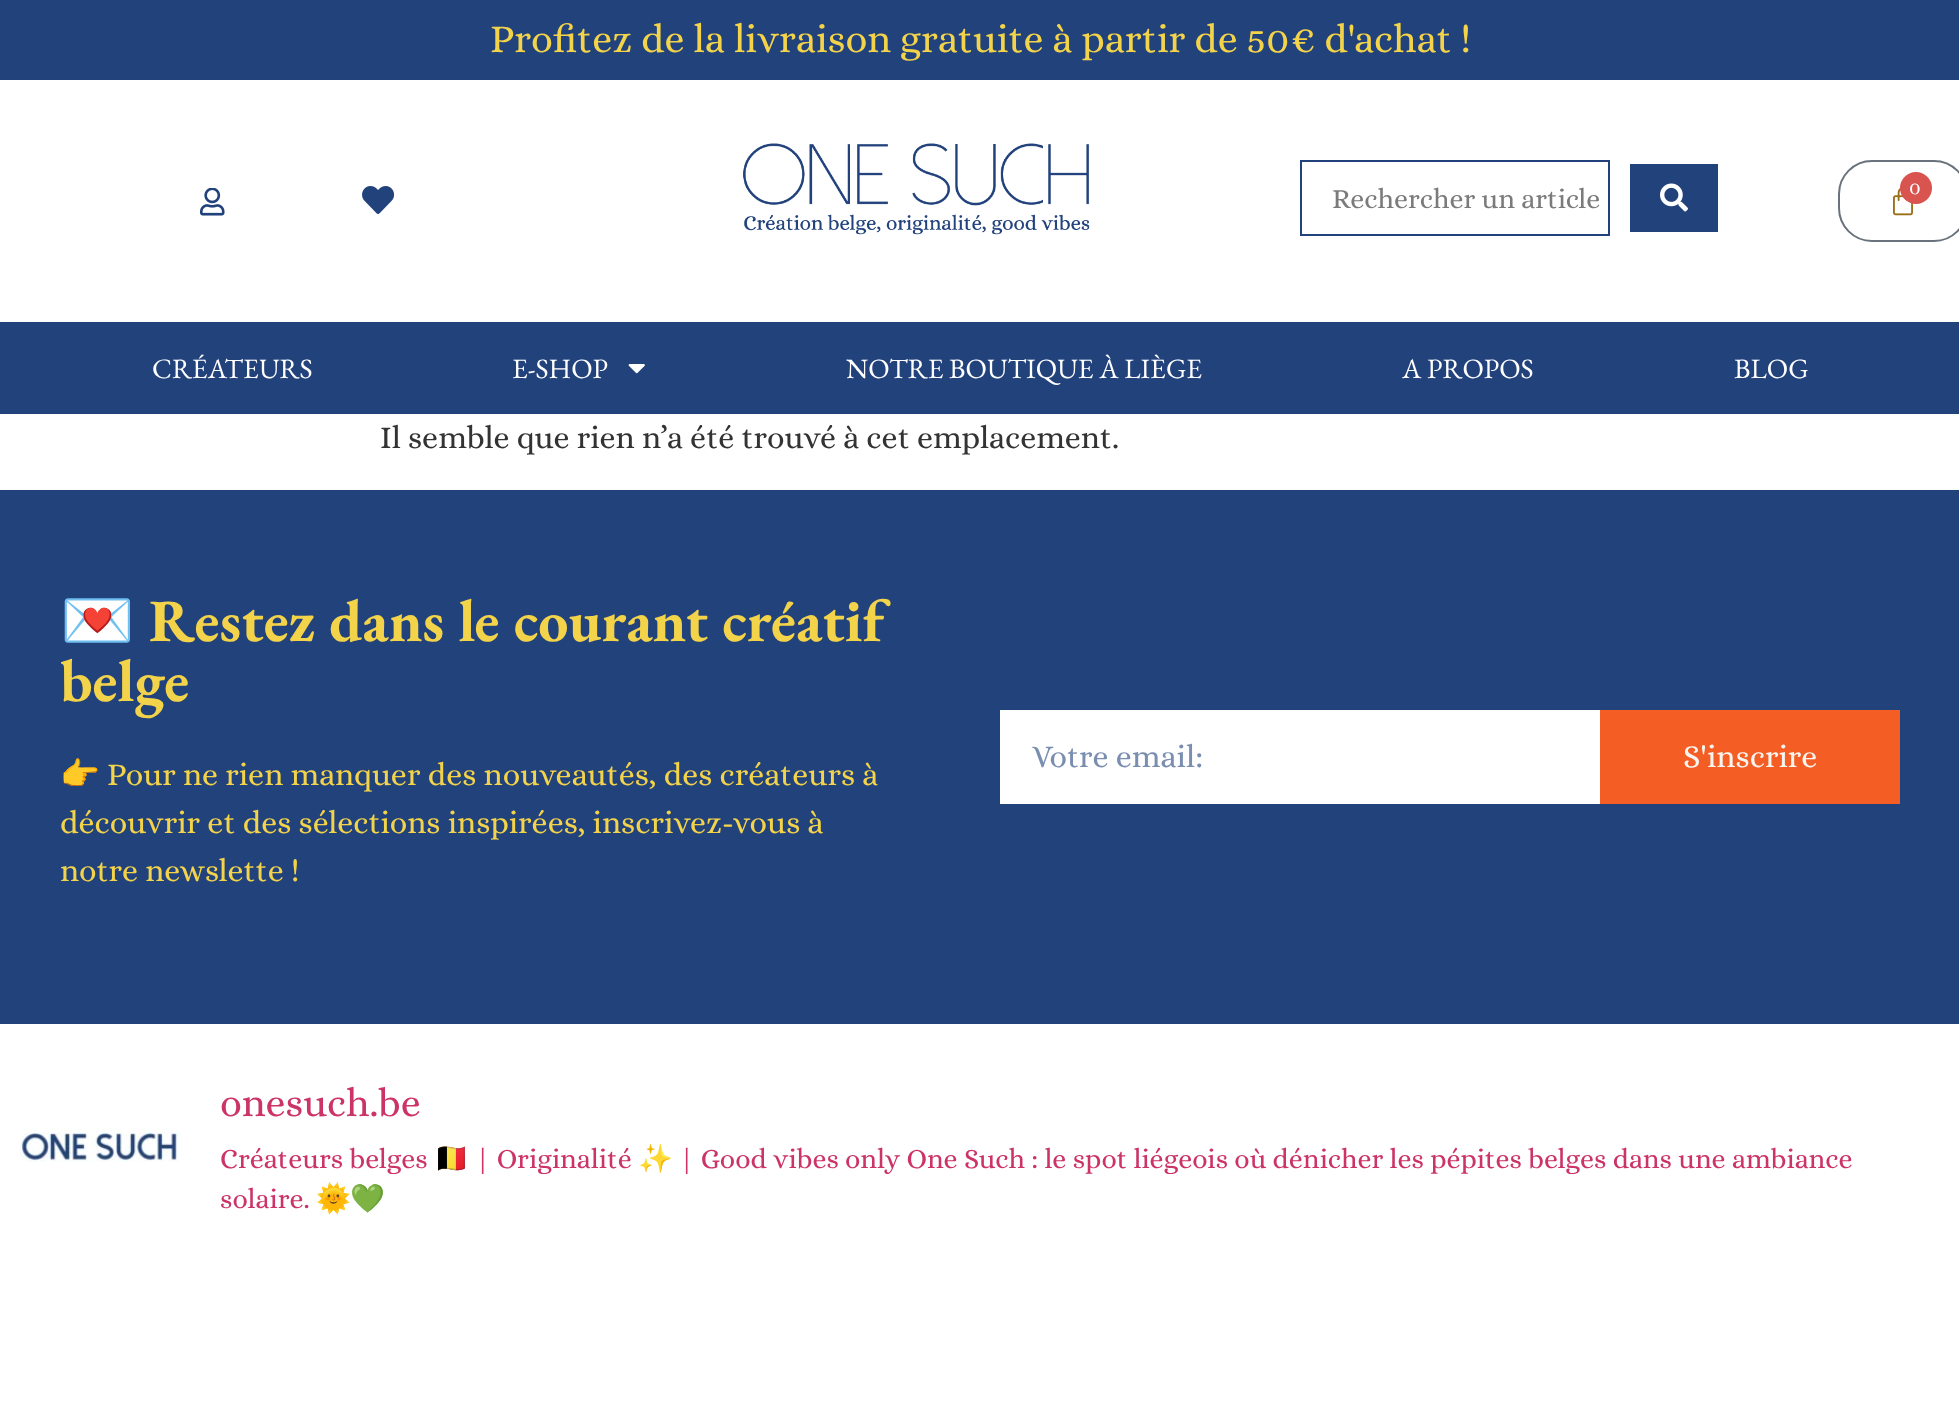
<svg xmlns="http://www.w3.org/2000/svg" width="1959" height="1414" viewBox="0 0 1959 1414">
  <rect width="100%" height="100%" fill="rgb(255,255,255)"/>
  <rect x="0" y="0" width="1959" height="80" fill="rgb(34,66,124)"/>
  <text x="490" y="52" font-family="Alice" font-size="40" fill="rgb(243,211,74)">Profitez de la livraison gratuite à partir de 50€ d'achat !</text>
  <image x="200" y="188" width="25" height="28" href="pic1.png"/>
  <image x="362" y="186" width="33" height="28" href="pic2.png"/>
  <image x="743" y="143" width="347" height="92" href="pic3.png"/>
  <rect x="1301" y="161" width="308" height="74" fill="none" stroke="rgb(34,66,124)" stroke-width="2"/>
  <text x="1332" y="208" font-family="Alice" font-size="28" fill="rgb(123,123,123)">Rechercher un article</text>
  <rect x="1630" y="164" width="88" height="68" fill="rgb(34,66,124)"/>
  <image x="1660" y="183" width="28" height="29" href="pic4.png"/>
  <rect x="1839" y="161" width="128" height="80" rx="33" fill="none" stroke="rgb(105,114,125)" stroke-width="2"/>
  <image x="1893" y="187" width="20" height="29" href="pic5.png"/>
  <circle cx="1916" cy="188" r="16" fill="rgb(217,83,79)"/>
  <text x="1909" y="194" font-family="Alice" font-size="20" fill="rgb(255,255,255)">0</text>
  <rect x="0" y="322" width="1959" height="92" fill="rgb(34,66,124)"/>
  <g font-family="EB Garamond" font-size="28" fill="rgb(255,255,255)">
    <text x="152" y="378">CRÉATEURS</text>
    <text x="512" y="378">E-SHOP</text>
  </g>
  <image x="628" y="364" width="17" height="10" href="pic6.png"/>
  <g font-family="EB Garamond" font-size="28" fill="rgb(255,255,255)">
    <text x="846" y="378">NOTRE BOUTIQUE À LIÈGE</text>
    <text x="1402" y="378">A PROPOS</text>
    <text x="1734" y="378">BLOG</text>
  </g>
  <text x="380" y="448" font-family="Alice" font-size="32" fill="rgb(51,51,51)">Il semble que rien n’a été trouvé à cet emplacement.</text>
  <rect x="0" y="490" width="1959" height="534" fill="rgb(34,66,124)"/>
  <text x="60" y="641" font-family="Noto Color Emoji" font-size="60" font-weight="bold" fill="rgb(243,211,74)">💌</text>
  <g font-family="EB Garamond" font-size="60" font-weight="bold" fill="rgb(243,211,74)">
    <text x="149" y="641">Restez dans le courant créatif</text>
    <text x="60" y="701">belge</text>
  </g>
  <text x="60" y="785" font-family="Noto Color Emoji" font-size="32" fill="rgb(243,211,74)">👉</text>
  <g font-family="Alice" font-size="32" fill="rgb(243,211,74)">
    <text x="107" y="785">Pour ne rien manquer des nouveautés, des créateurs à</text>
    <text>
      <tspan x="60" y="833">découvrir et des sélections inspirées, inscrivez-vous à</tspan>
      <tspan x="60" y="881">notre newslette !</tspan>
    </text>
  </g>
  <rect x="1000" y="710" width="600" height="94" fill="rgb(255,255,255)"/>
  <text x="1032" y="767" font-family="Alice" font-size="32" fill="rgb(122,142,176)">Votre email:</text>
  <rect x="1600" y="710" width="300" height="94" fill="rgb(244,93,36)"/>
  <text x="1683" y="767" font-family="Alice" font-size="32" fill="rgb(248,245,240)">S'inscrire</text>
  <image x="20" y="1127" width="159" height="35" href="pic7.png"/>
  <text x="220" y="1116" font-family="Alice" font-size="40" fill="rgb(204,51,102)">onesuch.be</text>
  <text x="220" y="1168" font-family="Alice" font-size="28" fill="rgb(204,51,102)">Créateurs belges</text>
  <text x="434" y="1168" font-family="Noto Color Emoji" font-size="28" fill="rgb(204,51,102)">🇧🇪</text>
  <text x="475" y="1168" font-family="Alice" font-size="28" fill="rgb(204,51,102)">| Originalité</text>
  <text x="638" y="1168" font-family="Noto Color Emoji" font-size="28" fill="rgb(204,51,102)">✨</text>
  <g font-family="Alice" font-size="28" fill="rgb(204,51,102)">
    <text x="679" y="1168">| Good vibes only One Such : le spot liégeois où dénicher les pépites belges dans une ambiance</text>
    <text x="220" y="1208">solaire.</text>
  </g>
  <text x="316" y="1208" font-family="Noto Color Emoji" font-size="28" fill="rgb(204,51,102)">🌞💚</text>
</svg>
